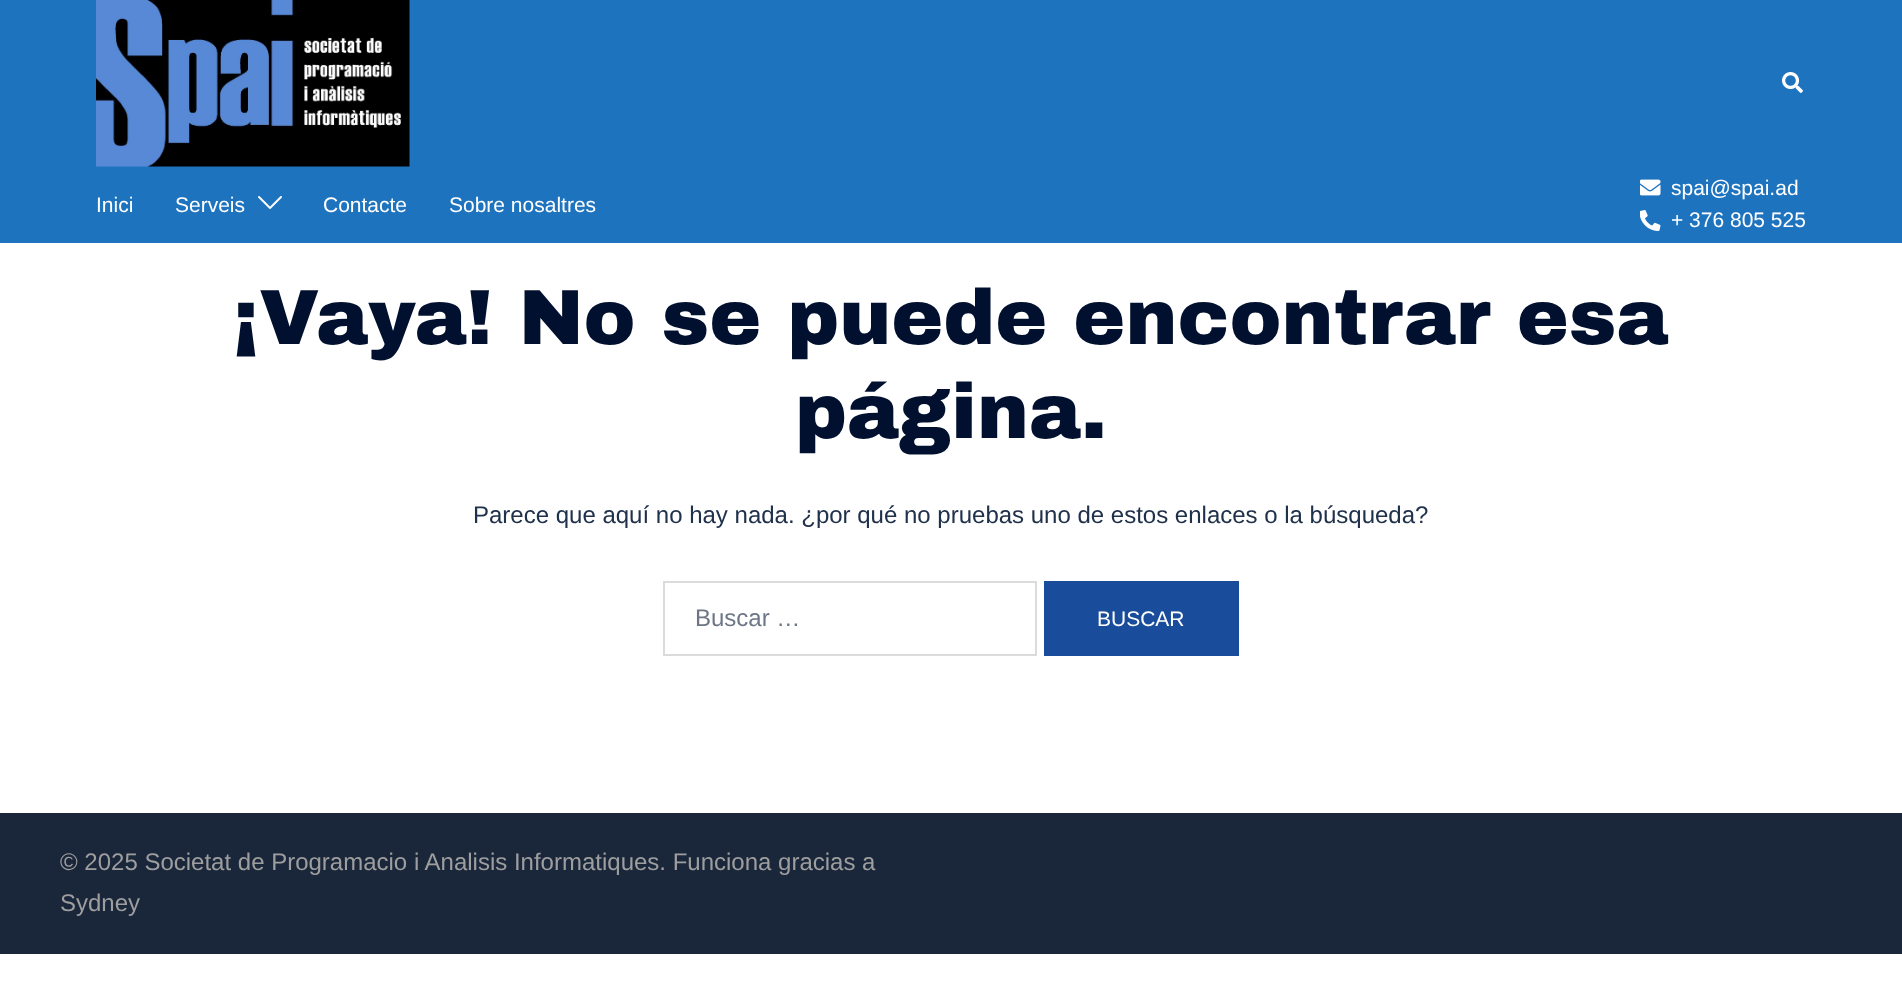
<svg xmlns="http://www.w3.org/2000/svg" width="1902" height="1006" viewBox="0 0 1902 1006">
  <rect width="100%" height="100%" fill="rgb(255,255,255)"/>
  <rect x="0" y="0" width="1902" height="243" fill="rgb(30,115,190)"/>
  <image x="96" y="0" width="314" height="167" href="pic1.png"/>
  <image x="1782" y="72" width="21" height="21" href="pic2.png"/>
  <g font-family="Liberation Sans" font-size="21" fill="rgb(255,255,255)">
    <text x="96" y="212">Inici</text>
    <text x="175" y="212">Serveis</text>
  </g>
  <image x="258" y="196" width="24" height="13" href="pic3.png"/>
  <g font-family="Liberation Sans" font-size="21" fill="rgb(255,255,255)">
    <text x="323" y="212">Contacte</text>
    <text x="449" y="212">Sobre nosaltres</text>
  </g>
  <image x="1640" y="179" width="21" height="17" href="pic4.png"/>
  <text x="1671" y="195" font-family="Liberation Sans" font-size="21" fill="rgb(255,255,255)">spai@spai.ad</text>
  <image x="1640" y="210" width="21" height="21" href="pic5.png"/>
  <text x="1671" y="227" font-family="Liberation Sans" font-size="21" fill="rgb(255,255,255)">+ 376 805 525</text>
  <g font-family="Archivo Black" font-size="78" font-weight="900" fill="rgb(0,16,46)">
    <text x="233" y="344">¡Vaya! No se puede encontrar esa</text>
    <text x="795" y="438">página.</text>
  </g>
  <text x="473" y="523" font-family="Liberation Sans" font-size="24" fill="rgb(32,49,75)">Parece que aquí no hay nada. ¿por qué no pruebas uno de estos enlaces o la búsqueda?</text>
  <rect x="664" y="582" width="372" height="73" fill="none" stroke="rgb(219,219,219)" stroke-width="2"/>
  <text x="695" y="626" font-family="Liberation Sans" font-size="24" fill="rgb(109,118,133)">Buscar …</text>
  <rect x="1044" y="581" width="195" height="75" fill="rgb(25,76,155)"/>
  <text x="1097" y="626" font-family="Liberation Sans" font-size="21" fill="rgb(255,255,255)">BUSCAR</text>
  <rect x="0" y="813" width="1902" height="141" fill="rgb(26,39,59)"/>
  <g font-family="Liberation Sans" font-size="24" fill="rgb(158,158,158)">
    <text>
      <tspan x="60" y="870">© 2025 Societat de Programacio i Analisis Informatiques. Funciona gracias a</tspan>
      <tspan x="60" y="911">Sydney</tspan>
    </text>
  </g>
</svg>
